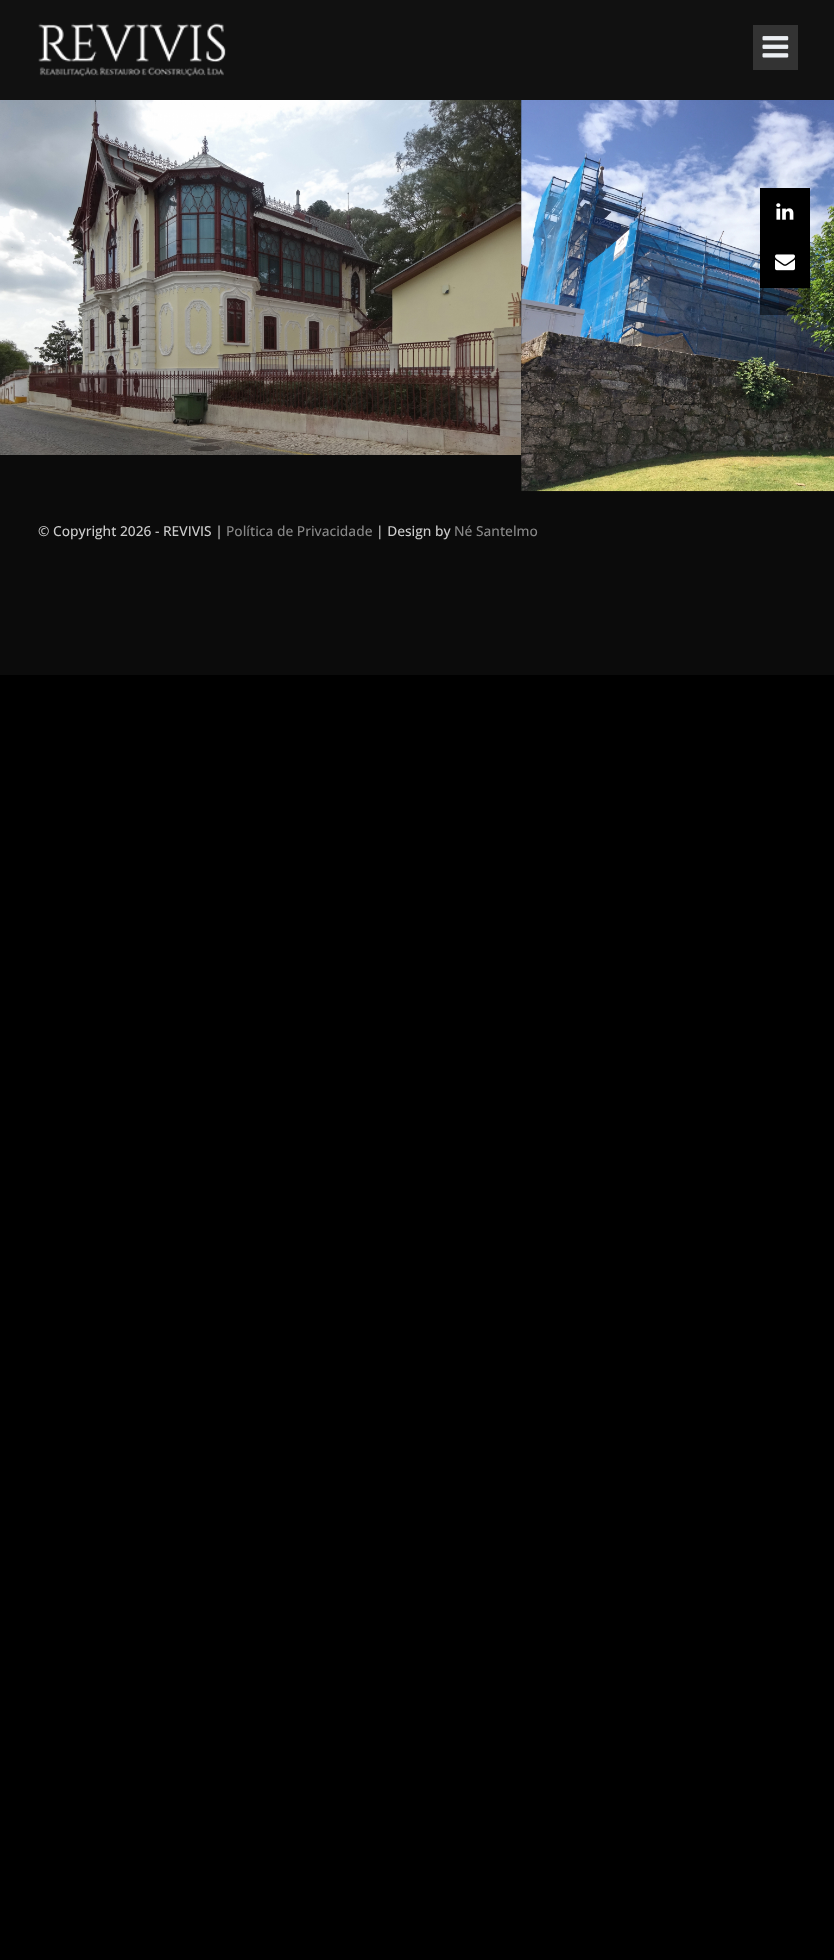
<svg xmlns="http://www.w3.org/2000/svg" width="834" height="1960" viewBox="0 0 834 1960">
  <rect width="100%" height="100%" fill="rgb(0,0,0)"/>
  <rect x="0" y="100" width="522" height="391" fill="rgb(11,11,11)"/>
  <image x="0" y="100" width="522" height="355" href="pic5.png"/>
  <rect x="0" y="491" width="834" height="184" fill="rgb(11,11,11)"/>
  <image x="521" y="100" width="313" height="392" href="pic6.png"/>
  <rect x="760" y="188" width="50" height="100" fill="rgb(0,0,0)"/>
  <image x="776" y="203" width="18" height="17" href="pic1.png"/>
  <image x="775" y="254" width="20" height="17" href="pic2.png"/>
  <rect x="0" y="0" width="834" height="100" fill="rgb(17,17,17)"/>
  <image x="38" y="23" width="188" height="54" href="pic3.png"/>
  <rect x="753" y="25" width="45" height="45" fill="rgb(51,51,51)"/>
  <image x="762" y="36" width="27" height="22" href="pic4.png"/>
  <rect x="760" y="288" width="50" height="27" fill="rgba(0,0,0,0.5)"/>
  <text x="38" y="536" font-family="Open Sans" font-size="13.75" font-weight="500" fill="rgb(204,204,204)">© Copyright 2026 - REVIVIS |</text>
  <text x="226" y="536" font-family="Open Sans" font-size="13.75" font-weight="500" fill="rgb(136,136,136)">Política de Privacidade</text>
  <text x="376" y="536" font-family="Open Sans" font-size="13.75" font-weight="500" fill="rgb(204,204,204)">| Design by</text>
  <text x="454" y="536" font-family="Open Sans" font-size="13.75" font-weight="500" fill="rgb(136,136,136)">Né Santelmo</text>
</svg>
